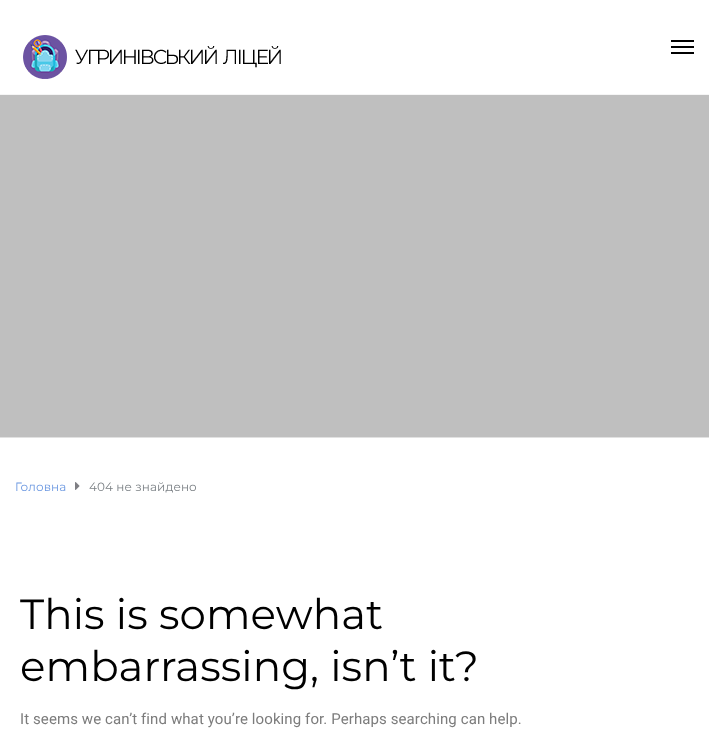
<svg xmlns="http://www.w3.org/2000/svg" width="709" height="747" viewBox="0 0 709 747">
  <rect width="100%" height="100%" fill="rgb(255,255,255)"/>
  <rect x="0" y="94" width="709" height="1" fill="rgb(245,245,245)"/>
  <image x="23" y="35" width="258" height="44" href="pic1.png"/>
  <rect x="671" y="40" width="23" height="2" fill="rgb(0,0,0)"/>
  <rect x="671" y="46" width="23" height="2" fill="rgb(0,0,0)"/>
  <rect x="671" y="52" width="23" height="2" fill="rgb(0,0,0)"/>
  <rect x="0" y="95" width="709" height="342" fill="rgb(191,191,191)"/>
  <rect x="0" y="437" width="709" height="1" fill="rgb(225,225,225)"/>
  <text x="15" y="491" font-family="Montserrat" font-size="12" letter-spacing="0.1" fill="rgb(108,152,225)">Головна</text>
  <image x="75" y="482" width="5" height="8" href="pic2.png"/>
  <text x="89" y="491" font-family="Montserrat" font-size="12" letter-spacing="0.1" fill="rgb(123,128,133)">404 не знайдено</text>
  <g font-family="Montserrat" font-size="42" letter-spacing="0.1" fill="rgb(0,0,0)">
    <text>
      <tspan x="20" y="629">This is somewhat</tspan>
      <tspan x="20" y="681">embarrassing, isn’t it?</tspan>
    </text>
  </g>
  <text x="20" y="724" font-family="Roboto" font-size="15" letter-spacing="0.1" fill="rgb(124,124,124)">It seems we can’t find what you’re looking for. Perhaps searching can help.</text>
</svg>
